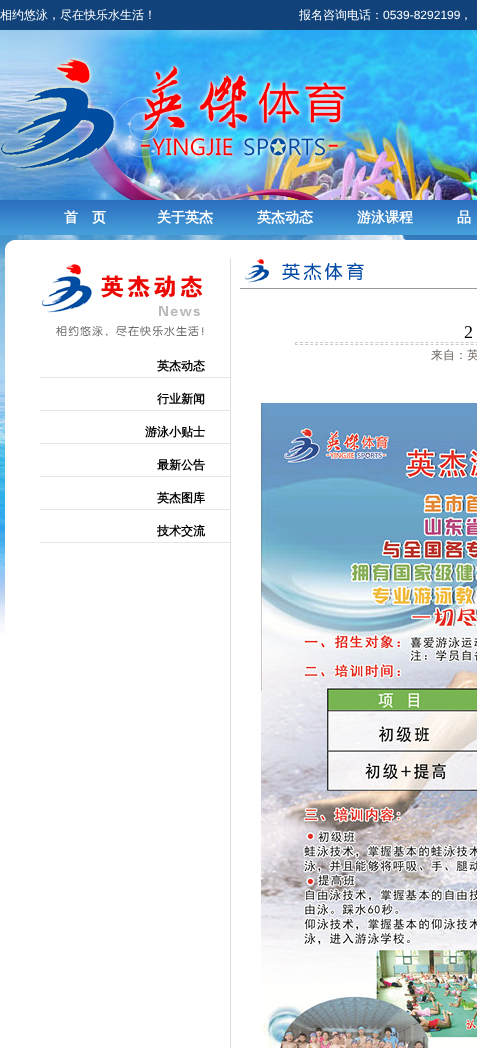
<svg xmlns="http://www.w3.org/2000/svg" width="477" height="1048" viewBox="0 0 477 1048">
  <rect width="100%" height="100%" fill="rgb(255,255,255)"/>
  <image x="0" y="235" width="477" height="399" href="pic1.png"/>
  <rect x="0" y="0" width="477" height="30" fill="rgb(17,66,122)"/>
  <g font-family="WenQuanYi Zen Hei" font-size="12" font-weight="500" fill="rgb(255,255,255)">
    <text x="0" y="19">相约悠泳，尽在快乐水生活！</text>
    <text x="299" y="19">报名咨询电话：</text>
  </g>
  <text x="383" y="19" font-family="Liberation Sans" font-size="12" fill="rgb(255,255,255)">0539-8292199</text>
  <text x="460" y="19" font-family="WenQuanYi Zen Hei" font-size="12" font-weight="500" fill="rgb(255,255,255)">，</text>
  <image x="0" y="30" width="146" height="170" href="pic2.png"/>
  <image x="0" y="30" width="477" height="170" href="pic3.png"/>
  <image x="0" y="200" width="477" height="35" href="pic4.png"/>
  <g font-family="WenQuanYi Zen Hei" font-size="14" font-weight="bold" fill="rgb(255,255,255)">
    <text x="64" y="222">首　页</text>
    <text x="157" y="222">关于英杰</text>
    <text x="257" y="222">英杰动态</text>
    <text x="357" y="222">游泳课程</text>
    <text x="457" y="222">品</text>
  </g>
  <image x="5" y="240" width="472" height="18" href="pic5.png"/>
  <rect x="5" y="258" width="472" height="376" fill="rgb(255,255,255)"/>
  <rect x="230" y="258" width="1" height="790" fill="rgb(222,222,222)"/>
  <image x="245" y="259" width="119" height="24" href="pic6.png"/>
  <rect x="240" y="288" width="237" height="1" fill="rgb(153,153,153)"/>
  <text x="464" y="338" font-family="Liberation Serif" font-size="18" fill="rgb(0,0,0)">2</text>
  <path d="M295 342.5H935" fill="none" stroke="rgb(204,204,204)" stroke-dasharray="3 2.02"/>
  <path d="M295 344.5H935" fill="none" stroke="rgb(204,204,204)" stroke-dasharray="3 2.02"/>
  <rect x="295" y="342" width="1" height="3" fill="rgb(204,204,204)"/>
  <text x="431" y="359" font-family="WenQuanYi Zen Hei" font-size="12" font-weight="500" fill="rgb(113,105,100)">来自：英</text>
  <image x="261" y="403" width="216" height="645" href="pic7.png"/>
  <image x="42" y="264" width="162" height="73" href="pic8.png"/>
  <rect x="40" y="377" width="190" height="1" fill="rgb(230,230,230)"/>
  <text x="157" y="370" font-family="WenQuanYi Zen Hei" font-size="12" font-weight="bold" fill="rgb(0,0,0)">英杰动态</text>
  <rect x="40" y="410" width="190" height="1" fill="rgb(230,230,230)"/>
  <text x="157" y="403" font-family="WenQuanYi Zen Hei" font-size="12" font-weight="bold" fill="rgb(0,0,0)">行业新闻</text>
  <rect x="40" y="443" width="190" height="1" fill="rgb(230,230,230)"/>
  <text x="145" y="436" font-family="WenQuanYi Zen Hei" font-size="12" font-weight="bold" fill="rgb(0,0,0)">游泳小贴士</text>
  <rect x="40" y="476" width="190" height="1" fill="rgb(230,230,230)"/>
  <text x="157" y="469" font-family="WenQuanYi Zen Hei" font-size="12" font-weight="bold" fill="rgb(0,0,0)">最新公告</text>
  <rect x="40" y="509" width="190" height="1" fill="rgb(230,230,230)"/>
  <text x="157" y="502" font-family="WenQuanYi Zen Hei" font-size="12" font-weight="bold" fill="rgb(0,0,0)">英杰图库</text>
  <rect x="40" y="542" width="190" height="1" fill="rgb(230,230,230)"/>
  <text x="157" y="535" font-family="WenQuanYi Zen Hei" font-size="12" font-weight="bold" fill="rgb(0,0,0)">技术交流</text>
</svg>
